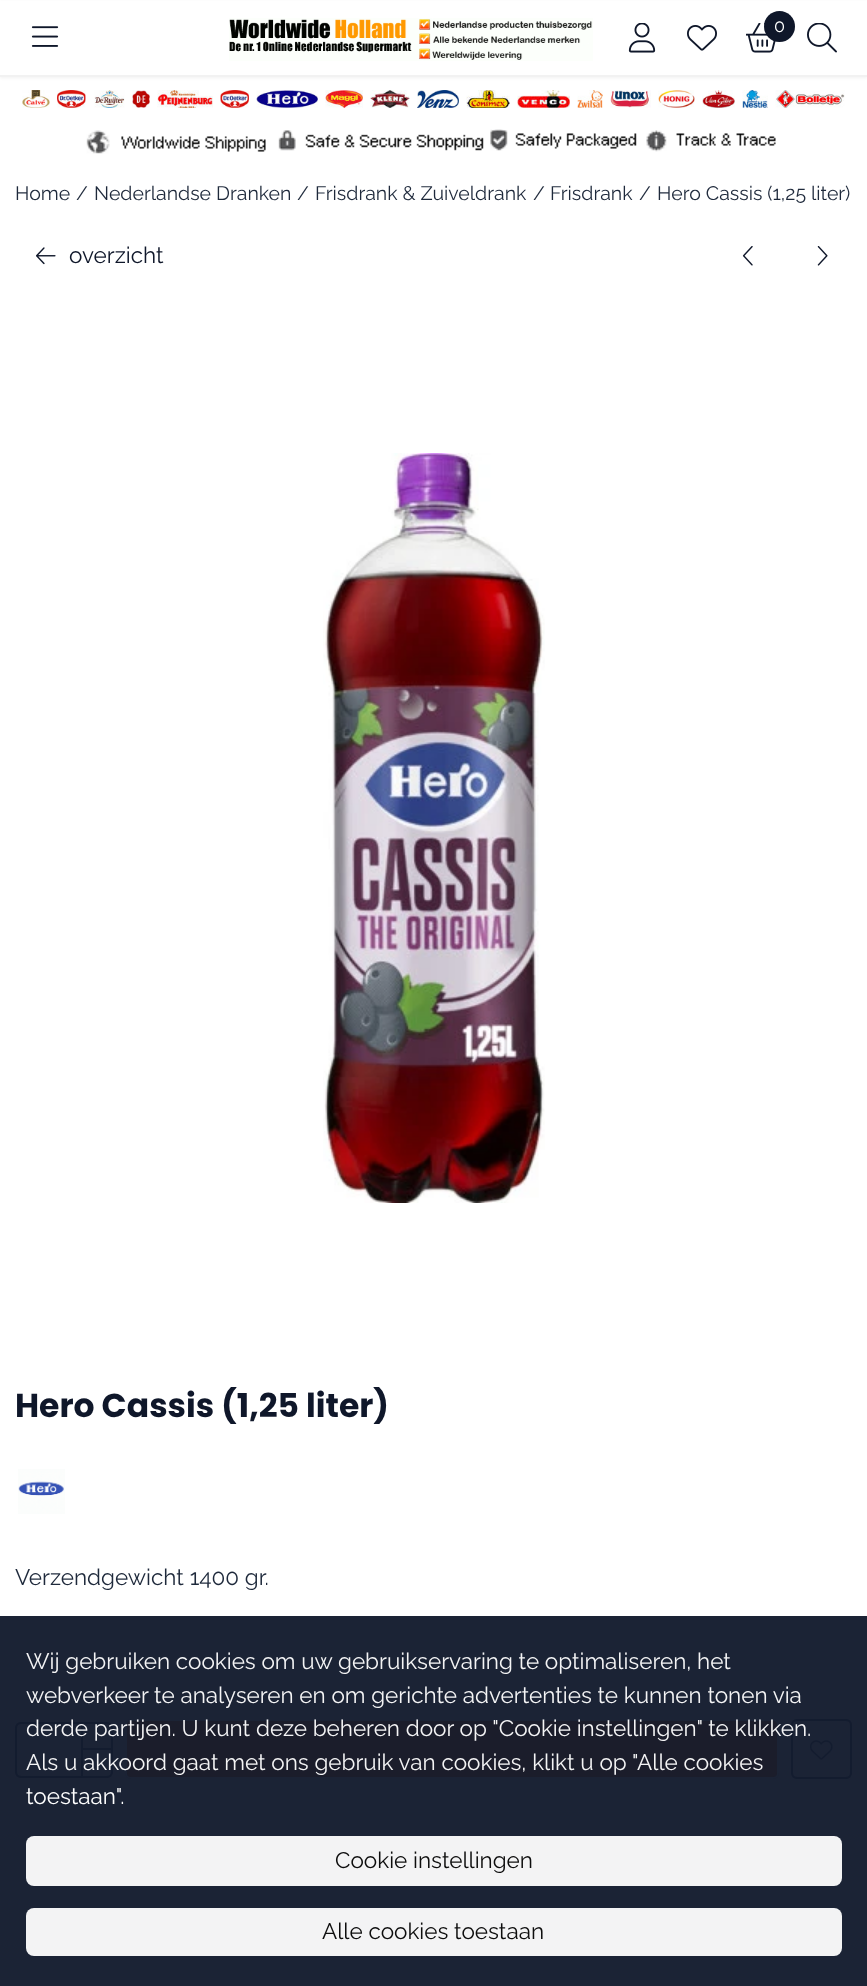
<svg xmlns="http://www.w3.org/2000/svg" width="867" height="1986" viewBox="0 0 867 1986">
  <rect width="100%" height="100%" fill="rgb(255,255,255)"/>
  <rect x="0" y="1616" width="867" height="370" fill="rgb(27,35,53)"/>
  <rect x="0" y="2" width="867" height="76" fill="rgba(0,0,0,0.05)" filter="blur(1.5px)"/>
  <rect x="0" y="1" width="867" height="74" fill="rgb(255,255,255)"/>
  <rect x="0" y="75" width="867" height="2" fill="rgb(242,242,242)"/>
  <image x="31" y="26" width="28" height="21" href="pic1.png"/>
  <image x="229" y="18" width="364" height="43" href="pic2.png"/>
  <image x="628" y="23" width="28" height="30" href="pic3.png"/>
  <image x="687" y="25" width="30" height="26" href="pic4.png"/>
  <image x="746" y="23" width="30" height="30" href="pic5.png"/>
  <circle cx="779.5" cy="26.5" r="15.5" fill="rgb(15,23,42)"/>
  <text x="774" y="32" font-family="Raleway" font-size="18" font-weight="100" fill="rgb(255,255,255)">0</text>
  <image x="807" y="23" width="30" height="30" href="pic6.png"/>
  <image x="22" y="90" width="28" height="18" href="pic7.png"/>
  <image x="57" y="90" width="29" height="18" href="pic8.png"/>
  <image x="94" y="90" width="31" height="18" href="pic9.png"/>
  <image x="132" y="90" width="18" height="18" href="pic10.png"/>
  <image x="157" y="90" width="56" height="18" href="pic11.png"/>
  <image x="220" y="90" width="29" height="18" href="pic12.png"/>
  <image x="256" y="90" width="62" height="18" href="pic13.png"/>
  <image x="325" y="90" width="38" height="18" href="pic14.png"/>
  <image x="370" y="90" width="40" height="18" href="pic15.png"/>
  <image x="417" y="90" width="42" height="18" href="pic16.png"/>
  <image x="466" y="90" width="44" height="18" href="pic17.png"/>
  <image x="517" y="90" width="53" height="18" href="pic18.png"/>
  <image x="577" y="90" width="26" height="18" href="pic19.png"/>
  <image x="610" y="90" width="41" height="18" href="pic20.png"/>
  <image x="658" y="90" width="37" height="18" href="pic21.png"/>
  <image x="702" y="90" width="33" height="18" href="pic22.png"/>
  <image x="742" y="90" width="26" height="18" href="pic23.png"/>
  <image x="775" y="90" width="70" height="18" href="pic24.png"/>
  <image x="86" y="130" width="180" height="24" href="pic25.png"/>
  <image x="278" y="130" width="206" height="21" href="pic26.png"/>
  <image x="490" y="129" width="147" height="22" href="pic27.png"/>
  <image x="646" y="130" width="130" height="22" href="pic28.png"/>
  <g font-family="Raleway" font-size="19.5" font-weight="100" fill="rgb(30,41,59)">
    <text x="15" y="200">Home</text>
    <text x="76" y="200">/</text>
    <text x="94" y="200">Nederlandse Dranken</text>
    <text x="297" y="200">/</text>
    <text x="315" y="200">Frisdrank &amp; Zuiveldrank</text>
    <text x="533" y="200">/</text>
    <text x="550" y="200">Frisdrank</text>
    <text x="639" y="200">/</text>
    <text x="657" y="200">Hero Cassis (1,25 liter)</text>
  </g>
  <image x="36" y="247" width="20" height="18" href="pic29.png"/>
  <text x="69" y="263" font-family="Raleway" font-size="22.5" font-weight="100" fill="rgb(15,23,42)">overzicht</text>
  <image x="742" y="246" width="11" height="20" href="pic30.png"/>
  <image x="817" y="246" width="11" height="20" href="pic31.png"/>
  <image x="323" y="453" width="222" height="750" href="pic32.png"/>
  <text x="15" y="1417" font-family="Poppins" font-size="33" font-weight="bold" fill="rgb(15,23,42)">Hero Cassis (1,25 liter)</text>
  <image x="18" y="1469" width="47" height="45" href="pic33.png"/>
  <text x="15" y="1585" font-family="Raleway" font-size="22.5" font-weight="100" fill="rgb(30,41,59)">Verzendgewicht 1400 gr.</text>
  <rect x="16" y="1723" width="96" height="54" rx="5" fill="none" stroke="rgb(19,28,47)" stroke-width="2"/>
  <rect x="81" y="1748" width="32" height="2" fill="rgb(19,28,47)"/>
  <rect x="81" y="1722" width="2" height="54" fill="rgb(19,28,47)"/>
  <rect x="126" y="1720" width="652" height="58" rx="5" fill="rgb(27,29,43)" stroke="rgb(27,35,53)" stroke-width="2"/>
  <rect x="792" y="1720" width="59" height="58" rx="5" fill="none" stroke="rgb(19,28,47)" stroke-width="2"/>
  <image x="810" y="1740" width="23" height="20" href="pic34.png"/>
  <g font-family="Raleway" font-size="22.5" font-weight="100" fill="rgb(244,244,245)">
    <text>
      <tspan x="26" y="1669">Wij gebruiken cookies om uw gebruikservaring te optimaliseren, het</tspan>
      <tspan x="26" y="1703">webverkeer te analyseren en om gerichte advertenties te kunnen tonen via</tspan>
      <tspan x="26" y="1736">derde partijen. U kunt deze beheren door op "Cookie instellingen" te klikken.</tspan>
      <tspan x="26" y="1770">Als u akkoord gaat met ons gebruik van cookies, klikt u op "Alle cookies</tspan>
    </text>
  </g>
  <text x="26" y="1804" font-family="Raleway" font-size="22.5" font-weight="100" fill="rgb(255,255,255)">toestaan".</text>
  <rect x="26" y="1836" width="816" height="50" rx="8" fill="rgba(255,255,255,0.95)"/>
  <text x="335" y="1868" font-family="Raleway" font-size="22.5" font-weight="100" fill="rgb(13,13,13)">Cookie instellingen</text>
  <rect x="26" y="1908" width="816" height="48" rx="8" fill="rgba(255,255,255,0.95)"/>
  <text x="322" y="1939" font-family="Raleway" font-size="22.5" font-weight="100" fill="rgb(13,13,13)">Alle cookies toestaan</text>
</svg>
